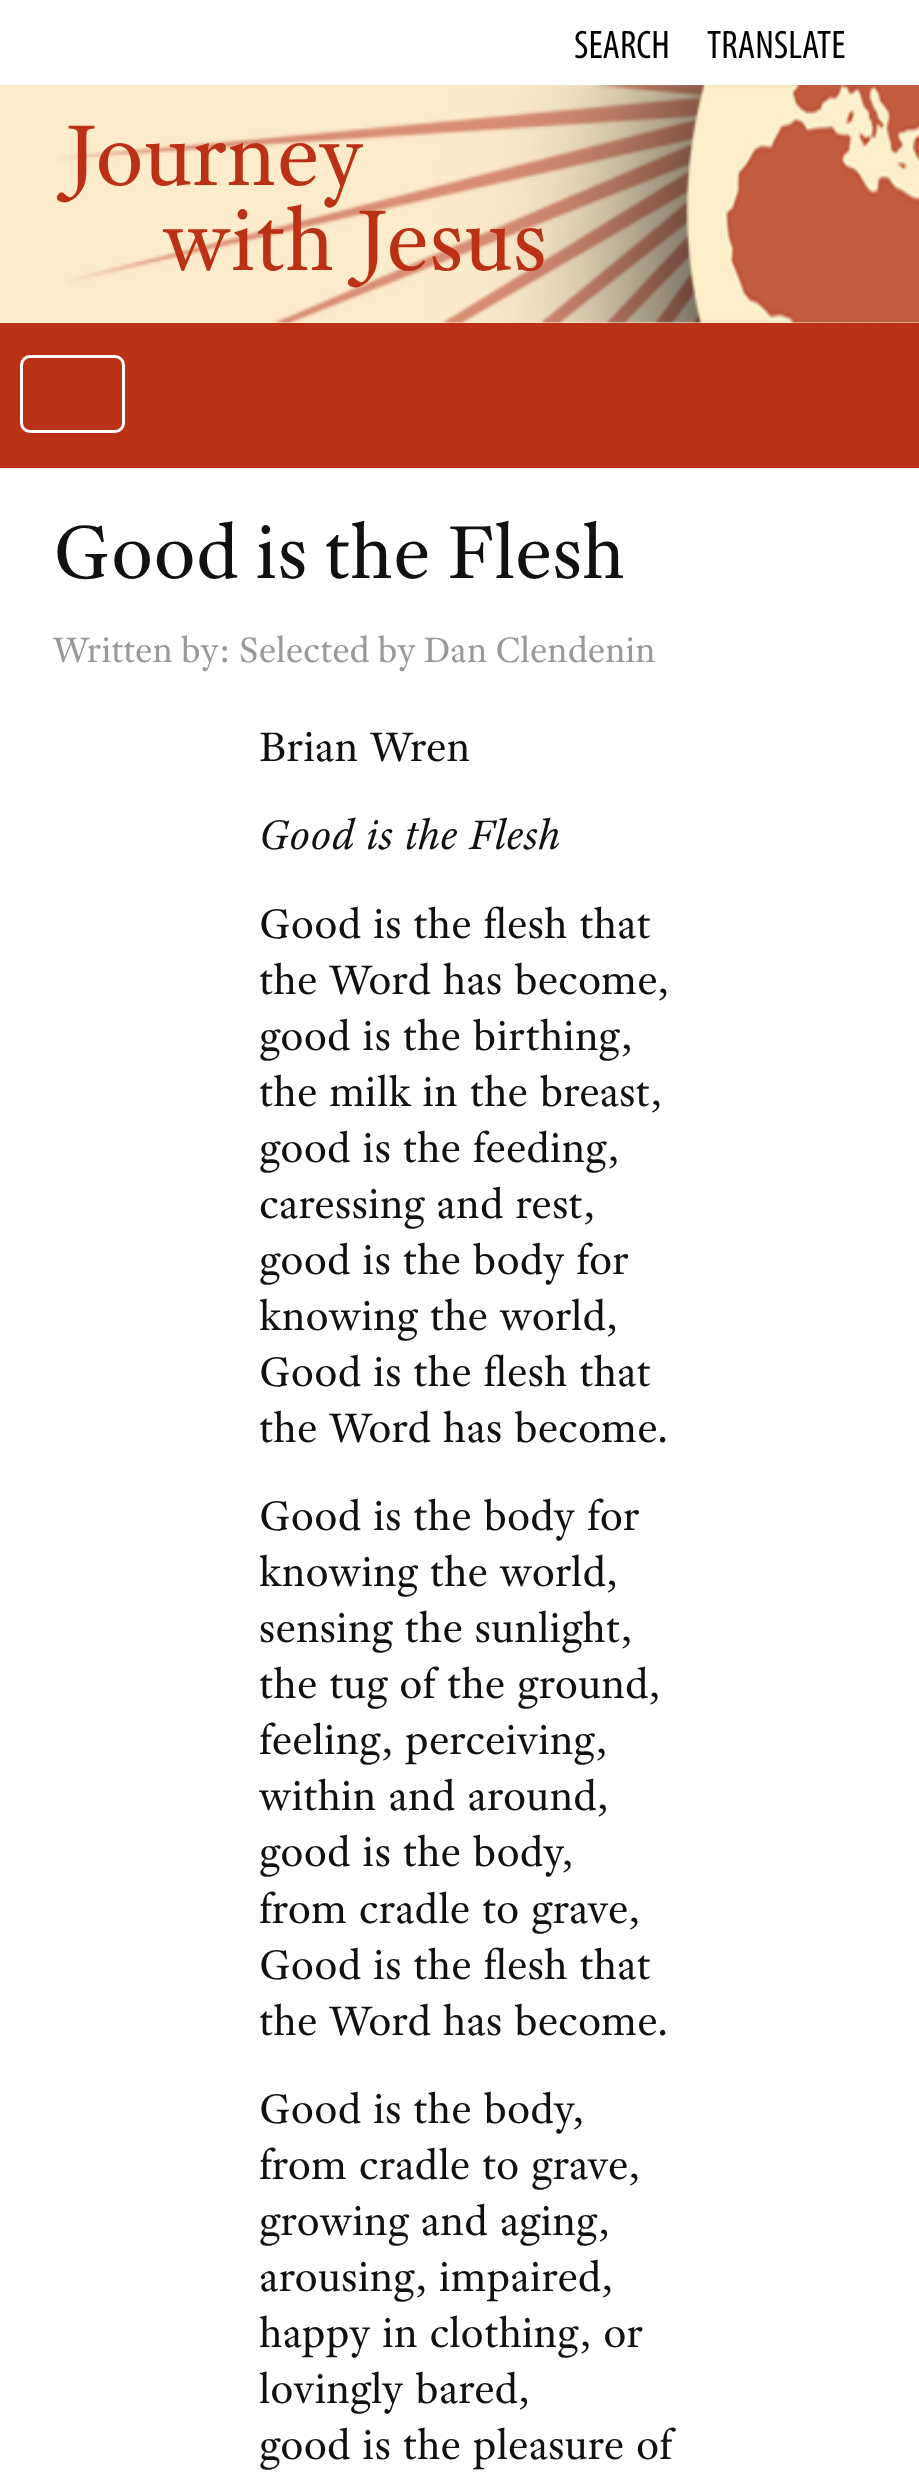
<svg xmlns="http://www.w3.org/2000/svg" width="919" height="2485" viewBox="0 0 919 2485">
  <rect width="100%" height="100%" fill="rgb(255,255,255)"/>
  <g font-family="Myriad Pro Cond" font-size="40" fill="rgb(0,0,0)">
    <text x="574" y="58">SEARCH</text>
    <text x="707" y="58">TRANSLATE</text>
  </g>
  <rect x="0" y="85" width="919" height="238" fill="rgb(253,236,204)"/>
  <image x="56" y="85" width="863" height="238" href="pic1.png"/>
  <g font-family="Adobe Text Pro" font-size="92" fill="rgb(187,49,22)">
    <text x="63" y="185">Journey</text>
    <text x="163" y="270">with Jesus</text>
  </g>
  <text x="53" y="578" font-family="Adobe Text Pro" font-size="80" fill="rgb(17,17,17)">Good is the Flesh</text>
  <text x="53" y="662" font-family="Adobe Text Pro" font-size="37.5" fill="rgb(153,153,153)">Written by: Selected by Dan Clendenin</text>
  <text x="259" y="761" word-spacing="2.5" font-family="Adobe Text Pro" font-size="44" fill="rgb(17,17,17)">Brian Wren</text>
  <text x="259" y="849" word-spacing="2.5" font-family="Adobe Text Pro" font-size="44" font-style="italic" fill="rgb(17,17,17)">Good is the Flesh</text>
  <g font-family="Adobe Text Pro" font-size="44" fill="rgb(17,17,17)">
    <text>
      <tspan x="259" y="938" word-spacing="2.5">Good is the flesh that</tspan>
      <tspan x="259" y="994" word-spacing="2.5">the Word has become,</tspan>
      <tspan x="259" y="1050" word-spacing="2.5">good is the birthing,</tspan>
      <tspan x="259" y="1106" word-spacing="2.5">the milk in the breast,</tspan>
      <tspan x="259" y="1162" word-spacing="2.5">good is the feeding,</tspan>
      <tspan x="259" y="1218" word-spacing="2.5">caressing and rest,</tspan>
      <tspan x="259" y="1274" word-spacing="2.5">good is the body for</tspan>
      <tspan x="259" y="1330" word-spacing="2.5">knowing the world,</tspan>
      <tspan x="259" y="1386" word-spacing="2.5">Good is the flesh that</tspan>
      <tspan x="259" y="1442" word-spacing="2.5">the Word has become.</tspan>
    </text>
    <text>
      <tspan x="259" y="1530" word-spacing="2.5">Good is the body for</tspan>
      <tspan x="259" y="1586" word-spacing="2.5">knowing the world,</tspan>
      <tspan x="259" y="1642" word-spacing="2.5">sensing the sunlight,</tspan>
      <tspan x="259" y="1698" word-spacing="2.5">the tug of the ground,</tspan>
      <tspan x="259" y="1754" word-spacing="2.5">feeling, perceiving,</tspan>
      <tspan x="259" y="1810" word-spacing="2.5">within and around,</tspan>
      <tspan x="259" y="1866" word-spacing="2.5">good is the body,</tspan>
      <tspan x="259" y="1923" word-spacing="2.5">from cradle to grave,</tspan>
      <tspan x="259" y="1979" word-spacing="2.5">Good is the flesh that</tspan>
      <tspan x="259" y="2035" word-spacing="2.5">the Word has become.</tspan>
    </text>
    <text>
      <tspan x="259" y="2123" word-spacing="2.5">Good is the body,</tspan>
      <tspan x="259" y="2179" word-spacing="2.5">from cradle to grave,</tspan>
      <tspan x="259" y="2235" word-spacing="2.5">growing and aging,</tspan>
      <tspan x="259" y="2291" word-spacing="2.5">arousing, impaired,</tspan>
      <tspan x="259" y="2347" word-spacing="2.5">happy in clothing, or</tspan>
      <tspan x="259" y="2403" word-spacing="2.5">lovingly bared,</tspan>
      <tspan x="259" y="2459" word-spacing="2.5">good is the pleasure of</tspan>
    </text>
  </g>
  <rect x="0" y="323" width="919" height="145" fill="rgb(187,49,22)"/>
  <rect x="21.5" y="356.5" width="102" height="75" rx="8.5" fill="none" stroke="rgb(255,255,255)" stroke-width="3"/>
</svg>
